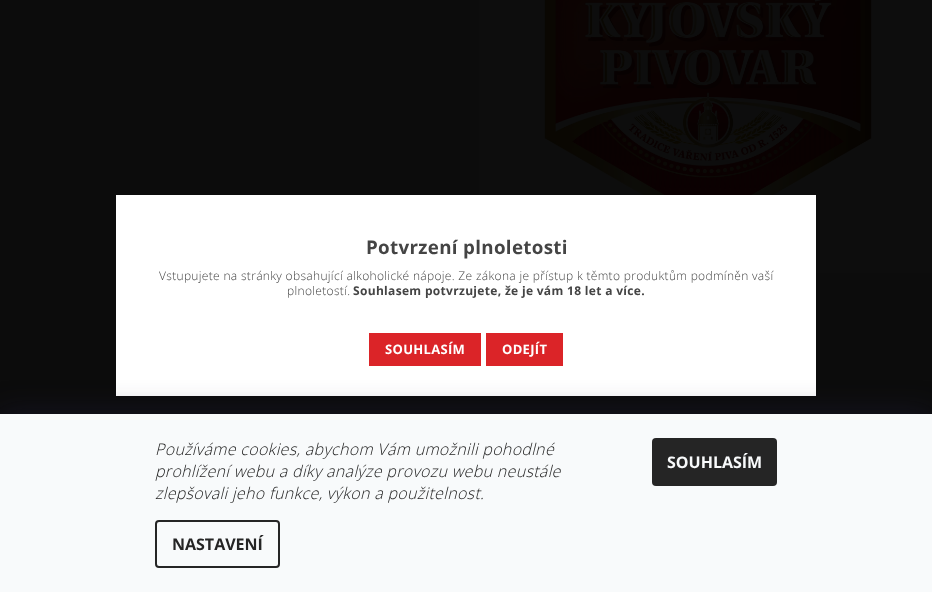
<svg xmlns="http://www.w3.org/2000/svg" width="932" height="592" viewBox="0 0 932 592">
  <rect width="100%" height="100%" fill="rgb(12,12,12)"/>
  <image x="479" y="0" width="453" height="273" href="pic1.png"/>
  <rect x="116" y="195" width="700" height="201" fill="rgb(255,255,255)"/>
  <text x="366" y="254" font-family="Open Sans" font-size="18.75" font-weight="bold" letter-spacing="0.32" fill="rgb(68,68,68)">Potvrzení plnoletosti</text>
  <g font-family="Open Sans" font-size="12" font-weight="300" letter-spacing="0.32" fill="rgb(68,68,68)">
    <text x="159" y="280">Vstupujete na stránky obsahující alkoholické nápoje. Ze zákona je přístup k těmto produktům podmíněn vaší</text>
    <text x="287" y="295">plnoletostí.</text>
  </g>
  <text x="353" y="295" font-family="Open Sans" font-size="12" font-weight="bold" letter-spacing="0.32" fill="rgb(68,68,68)">Souhlasem potvrzujete, že je vám 18 let a více.</text>
  <rect x="369" y="333" width="112" height="33" fill="rgb(219,36,40)"/>
  <text x="385" y="354" font-family="Open Sans" font-size="13" font-weight="bold" letter-spacing="0.32" fill="rgb(255,255,255)">SOUHLASÍM</text>
  <rect x="486" y="333" width="77" height="33" fill="rgb(219,36,40)"/>
  <text x="502" y="354" font-family="Open Sans" font-size="13" font-weight="bold" letter-spacing="0.32" fill="rgb(255,255,255)">ODEJÍT</text>
  <rect x="0" y="414" width="932" height="178" fill="rgba(27,25,57,0.5)" filter="blur(15px)"/>
  <rect x="0" y="414" width="932" height="178" fill="rgb(248,250,251)"/>
  <g font-family="Open Sans" font-size="16" font-weight="300" font-style="italic" letter-spacing="0.32" fill="rgb(37,37,37)">
    <text>
      <tspan x="155" y="455">Používáme cookies, abychom Vám umožnili pohodlné</tspan>
      <tspan x="155" y="477">prohlížení webu a díky analýze provozu webu neustále</tspan>
      <tspan x="155" y="499">zlepšovali jeho funkce, výkon a použitelnost.</tspan>
    </text>
  </g>
  <rect x="156" y="521" width="123" height="46" rx="3" fill="none" stroke="rgb(37,37,37)" stroke-width="2"/>
  <text x="172" y="550" font-family="Open Sans" font-size="16" font-weight="bold" fill="rgb(37,37,37)">NASTAVENÍ</text>
  <rect x="652" y="438" width="125" height="48" rx="4" fill="rgb(37,37,37)"/>
  <text x="667" y="468" font-family="Open Sans" font-size="16" font-weight="bold" fill="rgb(248,250,251)">SOUHLASÍM</text>
</svg>
